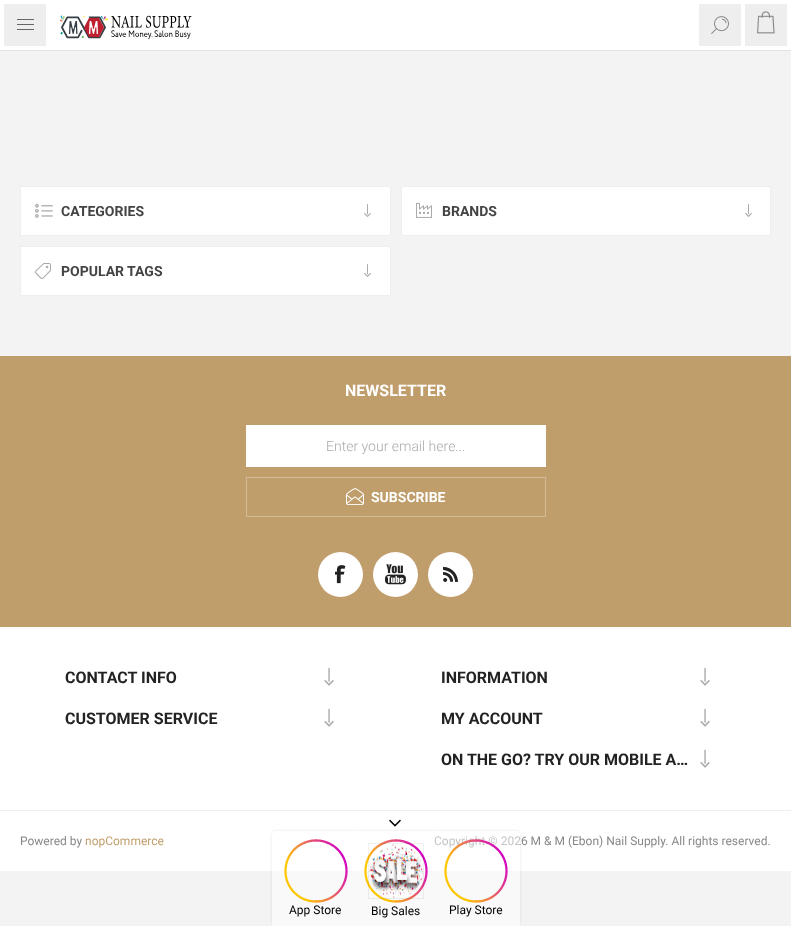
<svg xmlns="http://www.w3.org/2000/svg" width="791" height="926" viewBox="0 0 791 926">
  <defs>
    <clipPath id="clip1"><path d="M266 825H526V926H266ZM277 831H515C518 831 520 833 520 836V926H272V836C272 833 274 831 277 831Z" clip-rule="evenodd"/></clipPath>
    <linearGradient id="g1" gradientUnits="userSpaceOnUse" x1="292" y1="871" x2="340" y2="847"><stop offset="0" stop-color="rgb(255,198,0)"/><stop offset="1" stop-color="rgb(211,0,197)"/></linearGradient>
    <linearGradient id="g2" gradientUnits="userSpaceOnUse" x1="372" y1="871" x2="420" y2="847"><stop offset="0" stop-color="rgb(255,198,0)"/><stop offset="1" stop-color="rgb(211,0,197)"/></linearGradient>
    <linearGradient id="g3" gradientUnits="userSpaceOnUse" x1="452" y1="871" x2="500" y2="847"><stop offset="0" stop-color="rgb(255,198,0)"/><stop offset="1" stop-color="rgb(211,0,197)"/></linearGradient>
  </defs>
  <rect width="100%" height="100%" fill="rgb(243,243,243)"/>
  <rect x="0" y="50" width="791" height="1" fill="rgb(227,227,227)"/>
  <rect x="50" y="0" width="691" height="50" fill="rgb(255,255,255)"/>
  <image x="60" y="15" width="132" height="24" href="pic1.png"/>
  <rect x="699" y="4" width="42" height="42" fill="rgb(238,238,238)"/>
  <image x="711" y="16" width="18" height="18" href="pic2.png"/>
  <rect x="2" y="2" width="46" height="46" fill="rgb(238,238,238)" stroke="rgb(255,255,255)" stroke-width="4"/>
  <rect x="17" y="19" width="17" height="1" fill="rgb(102,102,102)"/>
  <rect x="17" y="24" width="17" height="1" fill="rgb(102,102,102)"/>
  <rect x="17" y="29" width="17" height="1" fill="rgb(102,102,102)"/>
  <rect x="743" y="2" width="46" height="46" fill="rgb(238,238,238)" stroke="rgb(255,255,255)" stroke-width="4"/>
  <image x="757" y="11" width="18" height="23" href="pic3.png"/>
  <rect x="21" y="187" width="369" height="48" fill="rgb(255,255,255)"/>
  <rect x="20" y="186" width="371" height="1" fill="rgb(238,238,238)"/>
  <rect x="390" y="186" width="1" height="50" fill="rgb(238,238,238)"/>
  <rect x="20" y="186" width="1" height="50" fill="rgb(238,238,238)"/>
  <rect x="21" y="235" width="369" height="1" fill="rgb(238,238,238)"/>
  <image x="35" y="203" width="18" height="15" href="pic4.png"/>
  <text x="61" y="216" font-family="Roboto" font-size="14" font-weight="bold" fill="rgb(68,68,68)">CATEGORIES</text>
  <image x="364" y="204" width="7" height="13" href="pic5.png"/>
  <rect x="402" y="187" width="368" height="48" fill="rgb(255,255,255)"/>
  <rect x="401" y="186" width="370" height="1" fill="rgb(238,238,238)"/>
  <rect x="770" y="186" width="1" height="50" fill="rgb(238,238,238)"/>
  <rect x="401" y="186" width="1" height="50" fill="rgb(238,238,238)"/>
  <rect x="402" y="235" width="368" height="1" fill="rgb(238,238,238)"/>
  <image x="416" y="202" width="16" height="16" href="pic6.png"/>
  <text x="442" y="216" font-family="Roboto" font-size="14" font-weight="bold" fill="rgb(68,68,68)">BRANDS</text>
  <image x="745" y="204" width="7" height="13" href="pic5.png"/>
  <rect x="21" y="247" width="369" height="48" fill="rgb(255,255,255)"/>
  <rect x="20" y="246" width="371" height="1" fill="rgb(238,238,238)"/>
  <rect x="390" y="246" width="1" height="50" fill="rgb(238,238,238)"/>
  <rect x="20" y="246" width="1" height="50" fill="rgb(238,238,238)"/>
  <rect x="21" y="295" width="369" height="1" fill="rgb(238,238,238)"/>
  <image x="35" y="263" width="16" height="16" href="pic7.png"/>
  <text x="61" y="276" font-family="Roboto" font-size="14" font-weight="bold" fill="rgb(68,68,68)">POPULAR TAGS</text>
  <image x="364" y="264" width="7" height="13" href="pic5.png"/>
  <rect x="0" y="627" width="791" height="244" fill="rgb(255,255,255)"/>
  <rect x="0" y="356" width="791" height="271" fill="rgb(192,158,108)"/>
  <text x="345" y="396" font-family="Roboto" font-size="16" font-weight="bold" fill="rgb(255,255,255)">NEWSLETTER</text>
  <rect x="246" y="425" width="300" height="42" fill="rgb(255,255,255)"/>
  <text x="326" y="451" font-family="Roboto" font-size="14" font-weight="300" fill="rgb(170,170,170)">Enter your email here...</text>
  <image x="346" y="488" width="18" height="17" href="pic8.png"/>
  <rect x="246.5" y="477.5" width="299" height="39" fill="none" stroke="rgb(211,187,152)"/>
  <text x="371" y="502" font-family="Roboto" font-size="14" font-weight="bold" fill="rgb(255,255,255)">SUBSCRIBE</text>
  <circle cx="340.5" cy="574.5" r="22.5" fill="rgb(255,255,255)"/>
  <image x="335" y="565" width="11" height="19" href="pic9.png"/>
  <circle cx="395.5" cy="574.5" r="22.5" fill="rgb(255,255,255)"/>
  <image x="385" y="564" width="21" height="21" href="pic10.png"/>
  <circle cx="450.5" cy="574.5" r="22.5" fill="rgb(255,255,255)"/>
  <image x="443" y="567" width="15" height="15" href="pic11.png"/>
  <text x="65" y="683" font-family="Roboto" font-size="16" font-weight="bold" fill="rgb(34,34,34)">CONTACT INFO</text>
  <image x="324" y="667" width="10" height="19" href="pic12.png"/>
  <text x="441" y="683" font-family="Roboto" font-size="16" font-weight="bold" fill="rgb(34,34,34)">INFORMATION</text>
  <image x="700" y="667" width="10" height="19" href="pic12.png"/>
  <text x="65" y="724" font-family="Roboto" font-size="16" font-weight="bold" fill="rgb(34,34,34)">CUSTOMER SERVICE</text>
  <image x="324" y="708" width="10" height="19" href="pic12.png"/>
  <text x="441" y="724" font-family="Roboto" font-size="16" font-weight="bold" fill="rgb(34,34,34)">MY ACCOUNT</text>
  <image x="700" y="708" width="10" height="19" href="pic12.png"/>
  <text x="441" y="765" font-family="Roboto" font-size="16" font-weight="bold" fill="rgb(34,34,34)">ON THE GO? TRY OUR MOBILE A…</text>
  <image x="700" y="749" width="10" height="19" href="pic12.png"/>
  <rect x="0" y="810" width="791" height="1" fill="rgb(238,238,238)"/>
  <text x="20" y="845" font-family="Roboto" font-size="12" fill="rgb(136,136,136)">Powered by</text>
  <text x="85" y="845" font-family="Roboto" font-size="12" fill="rgb(192,158,108)">nopCommerce</text>
  <text x="434" y="845" font-family="Roboto" font-size="12" fill="rgb(136,136,136)">Copyright © 2026 M &amp; M (Ebon) Nail Supply. All rights reserved.</text>
  <g clip-path="url(#clip1)">
    <rect x="272" y="831" width="248" height="95" rx="5" fill="rgba(60,72,88,0.15)" filter="blur(1.5px)"/>
  </g>
  <path d="M277 831H515C518 831 520 833 520 836V926H272V836C272 833 274 831 277 831Z" fill="rgba(255,255,255,0.5)"/>
  <path d="M361 814H431C434 814 436 816 436 819V830H356C356 826 354 814 361 814ZM361 815H431C433 815 435 817 435 819V830H357C357 826 355 815 361 815Z" fill="rgb(255,255,255)" fill-rule="evenodd"/>
  <image x="389" y="819" width="12" height="8" href="pic13.png"/>
  <path d="M316 840.5C333 840.5 346.5 854 346.5 871C346.5 888 333 901.5 316 901.5C299 901.5 285.5 888 285.5 871C285.5 854 299 840.5 316 840.5Z" fill="none" stroke="url(#g1)" stroke-width="2.3" stroke-linecap="round" stroke-dasharray="0.76 0.76"/>
  <text x="289" y="914" font-family="Roboto" font-size="12" fill="rgb(0,0,0)">App Store</text>
  <path d="M396 840.5C413 840.5 426.5 854 426.5 871C426.5 888 413 901.5 396 901.5C379 901.5 365.5 888 365.5 871C365.5 854 379 840.5 396 840.5Z" fill="none" stroke="url(#g2)" stroke-width="2.3" stroke-linecap="round" stroke-dasharray="0.76 0.76"/>
  <rect x="368.5" y="843.5" width="55" height="55" fill="none" stroke="rgba(0,0,0,0.06)"/>
  <image x="369" y="844" width="54" height="54" href="pic14.png"/>
  <text x="371" y="915" font-family="Roboto" font-size="12" fill="rgb(0,0,0)">Big Sales</text>
  <path d="M476 840.5C493 840.5 506.5 854 506.5 871C506.5 888 493 901.5 476 901.5C459 901.5 445.5 888 445.5 871C445.5 854 459 840.5 476 840.5Z" fill="none" stroke="url(#g3)" stroke-width="2.3" stroke-linecap="round" stroke-dasharray="0.76 0.76"/>
  <text x="449" y="914" font-family="Roboto" font-size="12" fill="rgb(0,0,0)">Play Store</text>
</svg>
